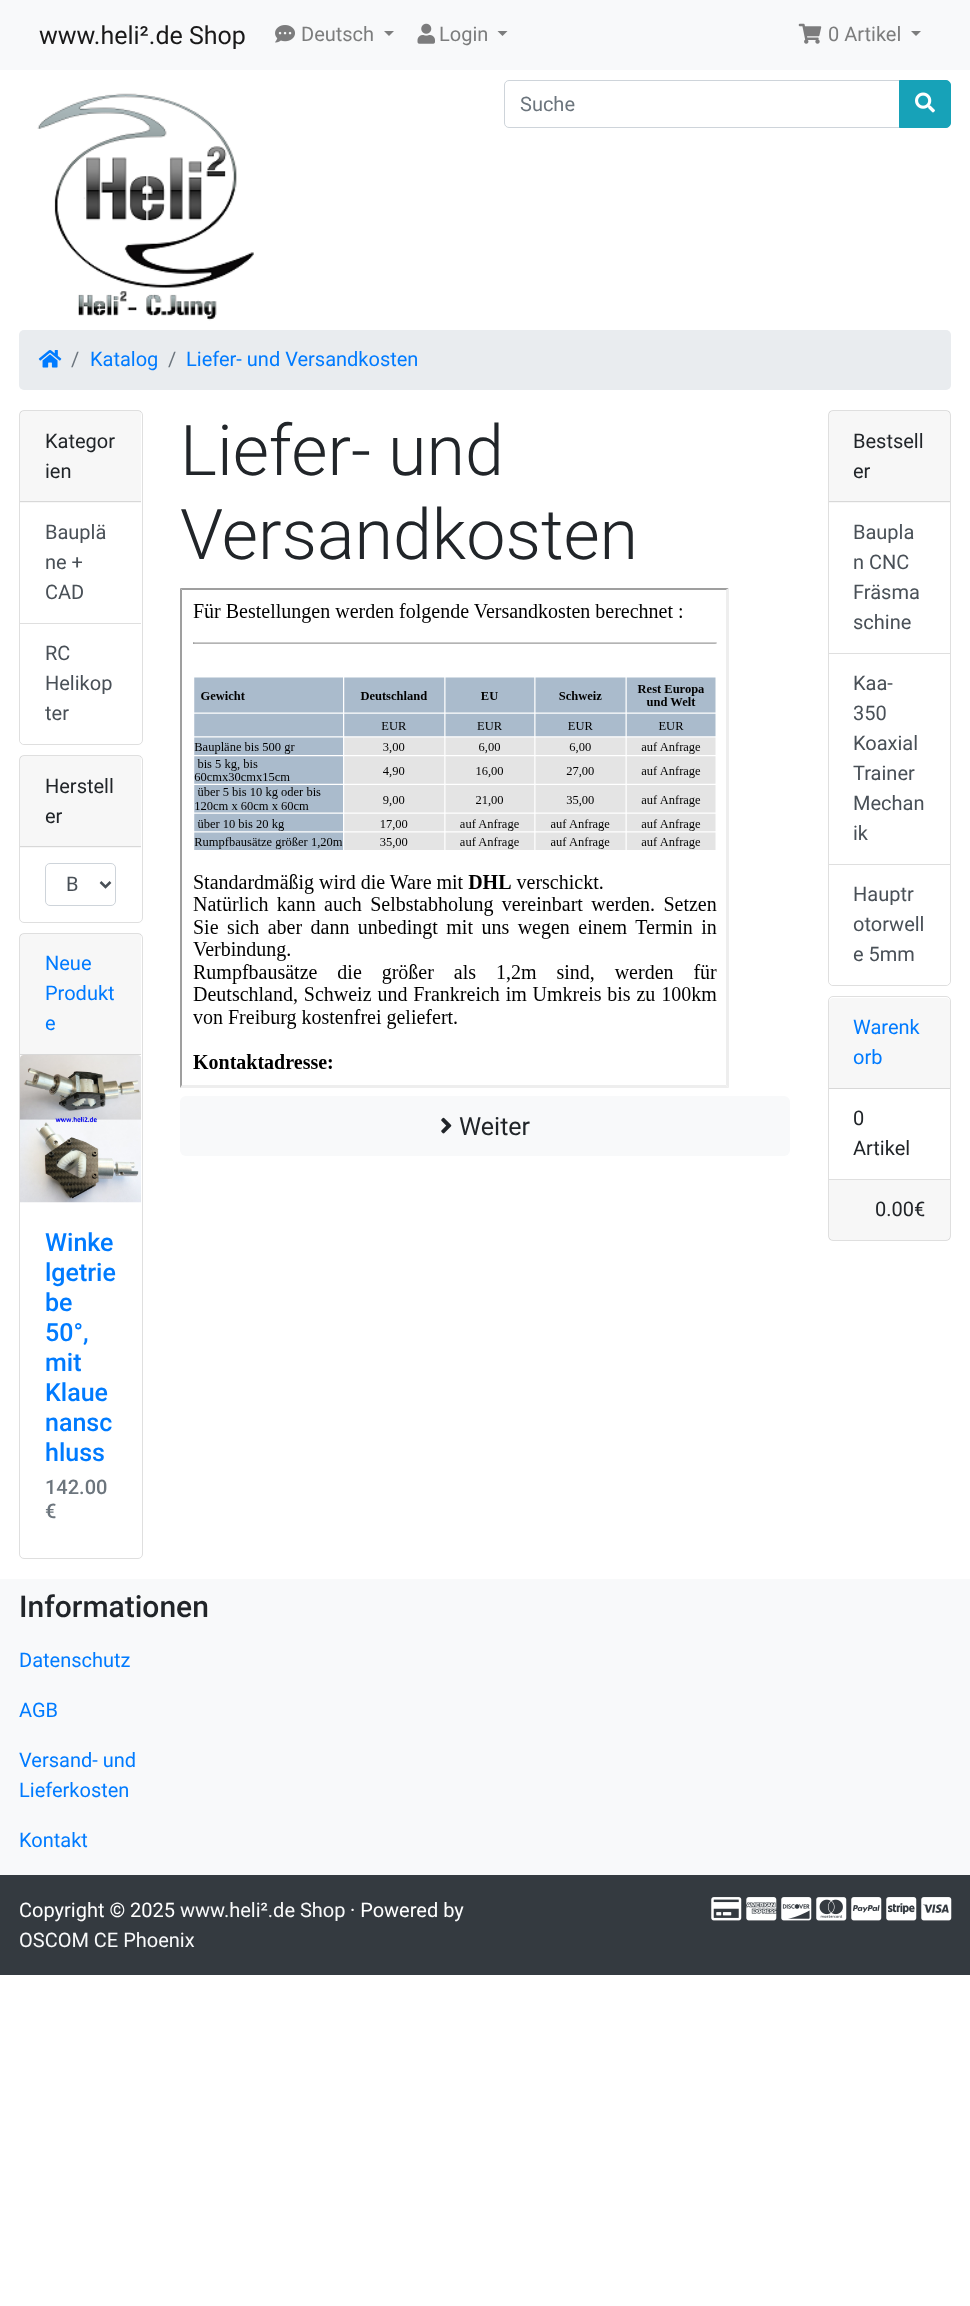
<svg xmlns="http://www.w3.org/2000/svg" width="970" height="2306" viewBox="0 0 970 2306">
  <rect width="100%" height="100%" fill="rgb(255,255,255)"/>
  <rect x="0" y="0" width="970" height="70" fill="rgb(248,249,250)"/>
  <text x="39" y="44" font-family="Roboto" font-size="25" fill="rgb(25,25,25)">www.heli².de Shop</text>
  <image x="275" y="25" width="20" height="18" href="pic1.png"/>
  <text x="301" y="41" font-family="Roboto" font-size="20" fill="rgb(124,125,125)">Deutsch</text>
  <path d="M384 31H394L389 36Z" fill="rgb(124,125,125)"/>
  <image x="417" y="23" width="18" height="21" href="pic2.png"/>
  <text x="439" y="41" font-family="Roboto" font-size="20" fill="rgb(124,125,125)">Login</text>
  <path d="M497.5 31H507.5L502.5 36Z" fill="rgb(124,125,125)"/>
  <image x="798" y="23" width="24" height="21" href="pic3.png"/>
  <text x="828" y="41" font-family="Roboto" font-size="20" fill="rgb(124,125,125)">0 Artikel</text>
  <path d="M911 31H921L916 36Z" fill="rgb(124,125,125)"/>
  <image x="37" y="93" width="217" height="228" href="pic4.png"/>
  <path d="M509 80.5H899.5V127.5H509C506.5 127.5 504.5 125.5 504.5 123V85C504.5 82.5 506.5 80.5 509 80.5Z" fill="none" stroke="rgb(206,212,218)"/>
  <text x="520" y="111" font-family="Roboto" font-size="20" fill="rgb(108,117,125)">Suche</text>
  <path d="M899.5 80.5H946C948.5 80.5 950.5 82.5 950.5 85V123C950.5 125.5 948.5 127.5 946 127.5H899.5Z" fill="rgb(23,162,184)" stroke="rgb(23,162,184)"/>
  <image x="915" y="92" width="20" height="21" href="pic5.png"/>
  <rect x="19" y="330" width="932" height="60" rx="5" fill="rgb(233,236,239)"/>
  <image x="38" y="350" width="24" height="18" href="pic6.png"/>
  <text x="71" y="366" font-family="Roboto" font-size="20" fill="rgb(108,117,125)">/</text>
  <text x="90" y="366" font-family="Roboto" font-size="20" fill="rgb(0,123,255)">Katalog</text>
  <text x="168" y="366" font-family="Roboto" font-size="20" fill="rgb(108,117,125)">/</text>
  <text x="186" y="366" font-family="Roboto" font-size="20" fill="rgb(0,123,255)">Liefer- und Versandkosten</text>
  <rect x="19.5" y="410.5" width="123" height="334" rx="4.5" fill="none" stroke="rgb(223,223,223)"/>
  <rect x="20" y="411" width="121" height="92" fill="rgba(0,0,0,0.03)"/>
  <rect x="20" y="501" width="121" height="1" fill="rgb(216,216,216)"/>
  <g font-family="Roboto" font-size="20" fill="rgb(33,37,41)">
    <text>
      <tspan x="45" y="448">Kategor</tspan>
      <tspan x="45" y="478">ien</tspan>
    </text>
  </g>
  <g font-family="Roboto" font-size="20" fill="rgb(73,80,87)">
    <text>
      <tspan x="45" y="539">Bauplä</tspan>
      <tspan x="45" y="569">ne +</tspan>
      <tspan x="45" y="599">CAD</tspan>
    </text>
  </g>
  <path d="M20 623H141V739C141 742 139 744 136 744H25C22 744 20 742 20 739Z" fill="rgb(255,255,255)"/>
  <rect x="20" y="623" width="121" height="1" fill="rgb(223,223,223)"/>
  <g font-family="Roboto" font-size="20" fill="rgb(73,80,87)">
    <text>
      <tspan x="45" y="660">RC</tspan>
      <tspan x="45" y="690">Helikop</tspan>
      <tspan x="45" y="720">ter</tspan>
    </text>
  </g>
  <rect x="19.5" y="755.5" width="123" height="167" rx="4.5" fill="none" stroke="rgb(223,223,223)"/>
  <rect x="20" y="756" width="121" height="92" fill="rgba(0,0,0,0.03)"/>
  <rect x="20" y="846" width="121" height="1" fill="rgb(216,216,216)"/>
  <g font-family="Roboto" font-size="20" fill="rgb(33,37,41)">
    <text>
      <tspan x="45" y="793">Herstell</tspan>
      <tspan x="45" y="823">er</tspan>
    </text>
  </g>
  <rect x="45.5" y="863.5" width="70" height="42" rx="4.5" fill="none" stroke="rgb(206,212,218)"/>
  <path d="M100.5 882L105.5 887L110.5 882" fill="none" stroke="rgb(73,80,87)" stroke-width="2.5"/>
  <text x="66" y="891" font-family="Roboto" font-size="20" fill="rgb(73,80,87)">B</text>
  <rect x="19.5" y="933.5" width="123" height="625" rx="4.5" fill="none" stroke="rgb(223,223,223)"/>
  <rect x="20" y="934" width="121" height="120" fill="rgba(0,0,0,0.03)"/>
  <rect x="20" y="1054" width="121" height="1" fill="rgb(216,216,216)"/>
  <g font-family="Roboto" font-size="20" fill="rgb(0,123,255)">
    <text>
      <tspan x="45" y="970">Neue</tspan>
      <tspan x="45" y="1000">Produkt</tspan>
      <tspan x="45" y="1030">e</tspan>
    </text>
  </g>
  <image x="20" y="1055" width="121" height="148" href="pic7.png"/>
  <g font-family="Roboto" font-size="25" font-weight="500" fill="rgb(0,123,255)">
    <text>
      <tspan x="45" y="1251">Winke</tspan>
      <tspan x="45" y="1281">lgetrie</tspan>
      <tspan x="45" y="1311">be</tspan>
      <tspan x="45" y="1341">50°,</tspan>
      <tspan x="45" y="1371">mit</tspan>
      <tspan x="45" y="1401">Klaue</tspan>
      <tspan x="45" y="1431">nansc</tspan>
      <tspan x="45" y="1461">hluss</tspan>
    </text>
  </g>
  <g font-family="Roboto" font-size="20" font-weight="500" fill="rgb(108,117,125)">
    <text>
      <tspan x="45" y="1494">142.00</tspan>
      <tspan x="45" y="1518">€</tspan>
    </text>
  </g>
  <g font-family="Roboto" font-size="70" font-weight="300" fill="rgb(33,37,41)">
    <text>
      <tspan x="180" y="475">Liefer- und</tspan>
      <tspan x="180" y="559">Versandkosten</tspan>
    </text>
  </g>
  <path d="M180 588H729L726 590H182Z" fill="rgb(159,159,159)"/>
  <path d="M729 588V1088L726 1085V590Z" fill="rgb(238,238,238)"/>
  <path d="M729 1088H180L182 1085H726Z" fill="rgb(238,238,238)"/>
  <path d="M180 1088V588L182 590V1085Z" fill="rgb(159,159,159)"/>
  <image x="193" y="603" width="524" height="466" href="pic8.png"/>
  <rect x="180" y="1096" width="610" height="60" rx="6" fill="rgb(248,249,250)"/>
  <image x="441" y="1117" width="11" height="17" href="pic9.png"/>
  <text x="459" y="1135" font-family="Roboto" font-size="25" fill="rgb(33,37,41)">Weiter</text>
  <rect x="828.5" y="410.5" width="122" height="575" rx="4.5" fill="none" stroke="rgb(223,223,223)"/>
  <rect x="829" y="411" width="121" height="92" fill="rgba(0,0,0,0.03)"/>
  <rect x="829" y="501" width="121" height="1" fill="rgb(216,216,216)"/>
  <g font-family="Roboto" font-size="20" fill="rgb(33,37,41)">
    <text>
      <tspan x="853" y="448">Bestsell</tspan>
      <tspan x="853" y="478">er</tspan>
    </text>
  </g>
  <g font-family="Roboto" font-size="20" fill="rgb(73,80,87)">
    <text>
      <tspan x="853" y="539">Baupla</tspan>
      <tspan x="853" y="569">n CNC</tspan>
      <tspan x="853" y="599">Fräsma</tspan>
      <tspan x="853" y="629">schine</tspan>
    </text>
  </g>
  <rect x="829" y="653" width="121" height="1" fill="rgb(223,223,223)"/>
  <g font-family="Roboto" font-size="20" fill="rgb(73,80,87)">
    <text>
      <tspan x="853" y="690">Kaa-</tspan>
      <tspan x="853" y="720">350</tspan>
      <tspan x="853" y="750">Koaxial</tspan>
      <tspan x="853" y="780">Trainer</tspan>
      <tspan x="853" y="810">Mechan</tspan>
      <tspan x="853" y="840">ik</tspan>
    </text>
  </g>
  <path d="M829 864H950V980C950 983 948 985 945 985H834C831 985 829 983 829 980Z" fill="rgb(255,255,255)"/>
  <rect x="829" y="864" width="121" height="1" fill="rgb(223,223,223)"/>
  <g font-family="Roboto" font-size="20" fill="rgb(73,80,87)">
    <text>
      <tspan x="853" y="901">Hauptr</tspan>
      <tspan x="853" y="931">otorwell</tspan>
      <tspan x="853" y="961">e 5mm</tspan>
    </text>
  </g>
  <rect x="828.5" y="996.5" width="122" height="244" rx="4.5" fill="none" stroke="rgb(223,223,223)"/>
  <path d="M833 998H946C948 998 950 1000 950 1002V1089H829V1002C829 1000 831 998 833 998Z" fill="rgb(247,247,247)"/>
  <rect x="829" y="1088" width="121" height="1" fill="rgb(216,216,216)"/>
  <g font-family="Roboto" font-size="20" fill="rgb(0,123,255)">
    <text>
      <tspan x="853" y="1034">Warenk</tspan>
      <tspan x="853" y="1064">orb</tspan>
    </text>
  </g>
  <rect x="829" y="1179" width="121" height="1" fill="rgb(223,223,223)"/>
  <g font-family="Roboto" font-size="20" fill="rgb(33,37,41)">
    <text>
      <tspan x="853" y="1125">0</tspan>
      <tspan x="853" y="1155">Artikel</tspan>
    </text>
  </g>
  <rect x="829" y="1180" width="121" height="60" fill="rgba(0,0,0,0.03)"/>
  <text x="875" y="1216" font-family="Roboto" font-size="20" fill="rgb(33,37,41)">0.00€</text>
  <rect x="0" y="1579" width="970" height="296" fill="rgb(248,249,250)"/>
  <text x="19" y="1617" font-family="Roboto" font-size="30" font-weight="500" fill="rgb(33,37,41)">Informationen</text>
  <g font-family="Roboto" font-size="20" fill="rgb(0,123,255)">
    <text x="19" y="1667">Datenschutz</text>
    <text x="19" y="1717">AGB</text>
    <text>
      <tspan x="19" y="1767">Versand- und</tspan>
      <tspan x="19" y="1797">Lieferkosten</tspan>
    </text>
    <text x="19" y="1847">Kontakt</text>
  </g>
  <rect x="0" y="1875" width="970" height="100" fill="rgb(52,58,64)"/>
  <text x="19" y="1917" font-family="Roboto" font-size="20" fill="rgb(255,255,255)">Copyright © 2025</text>
  <text x="180" y="1917" font-family="Roboto" font-size="20" fill="rgb(248,249,250)">www.heli².de Shop</text>
  <text x="350" y="1917" font-family="Roboto" font-size="20" fill="rgb(255,255,255)">· Powered by</text>
  <text x="19" y="1947" font-family="Roboto" font-size="20" fill="rgb(248,249,250)">OSCOM CE Phoenix</text>
  <image x="711" y="1897" width="31" height="24" href="pic10.png"/>
  <image x="746" y="1897" width="31" height="24" href="pic11.png"/>
  <image x="781" y="1897" width="31" height="24" href="pic12.png"/>
  <image x="816" y="1897" width="31" height="24" href="pic13.png"/>
  <image x="851" y="1897" width="31" height="24" href="pic14.png"/>
  <image x="886" y="1897" width="31" height="24" href="pic15.png"/>
  <image x="921" y="1897" width="31" height="24" href="pic16.png"/>
</svg>
